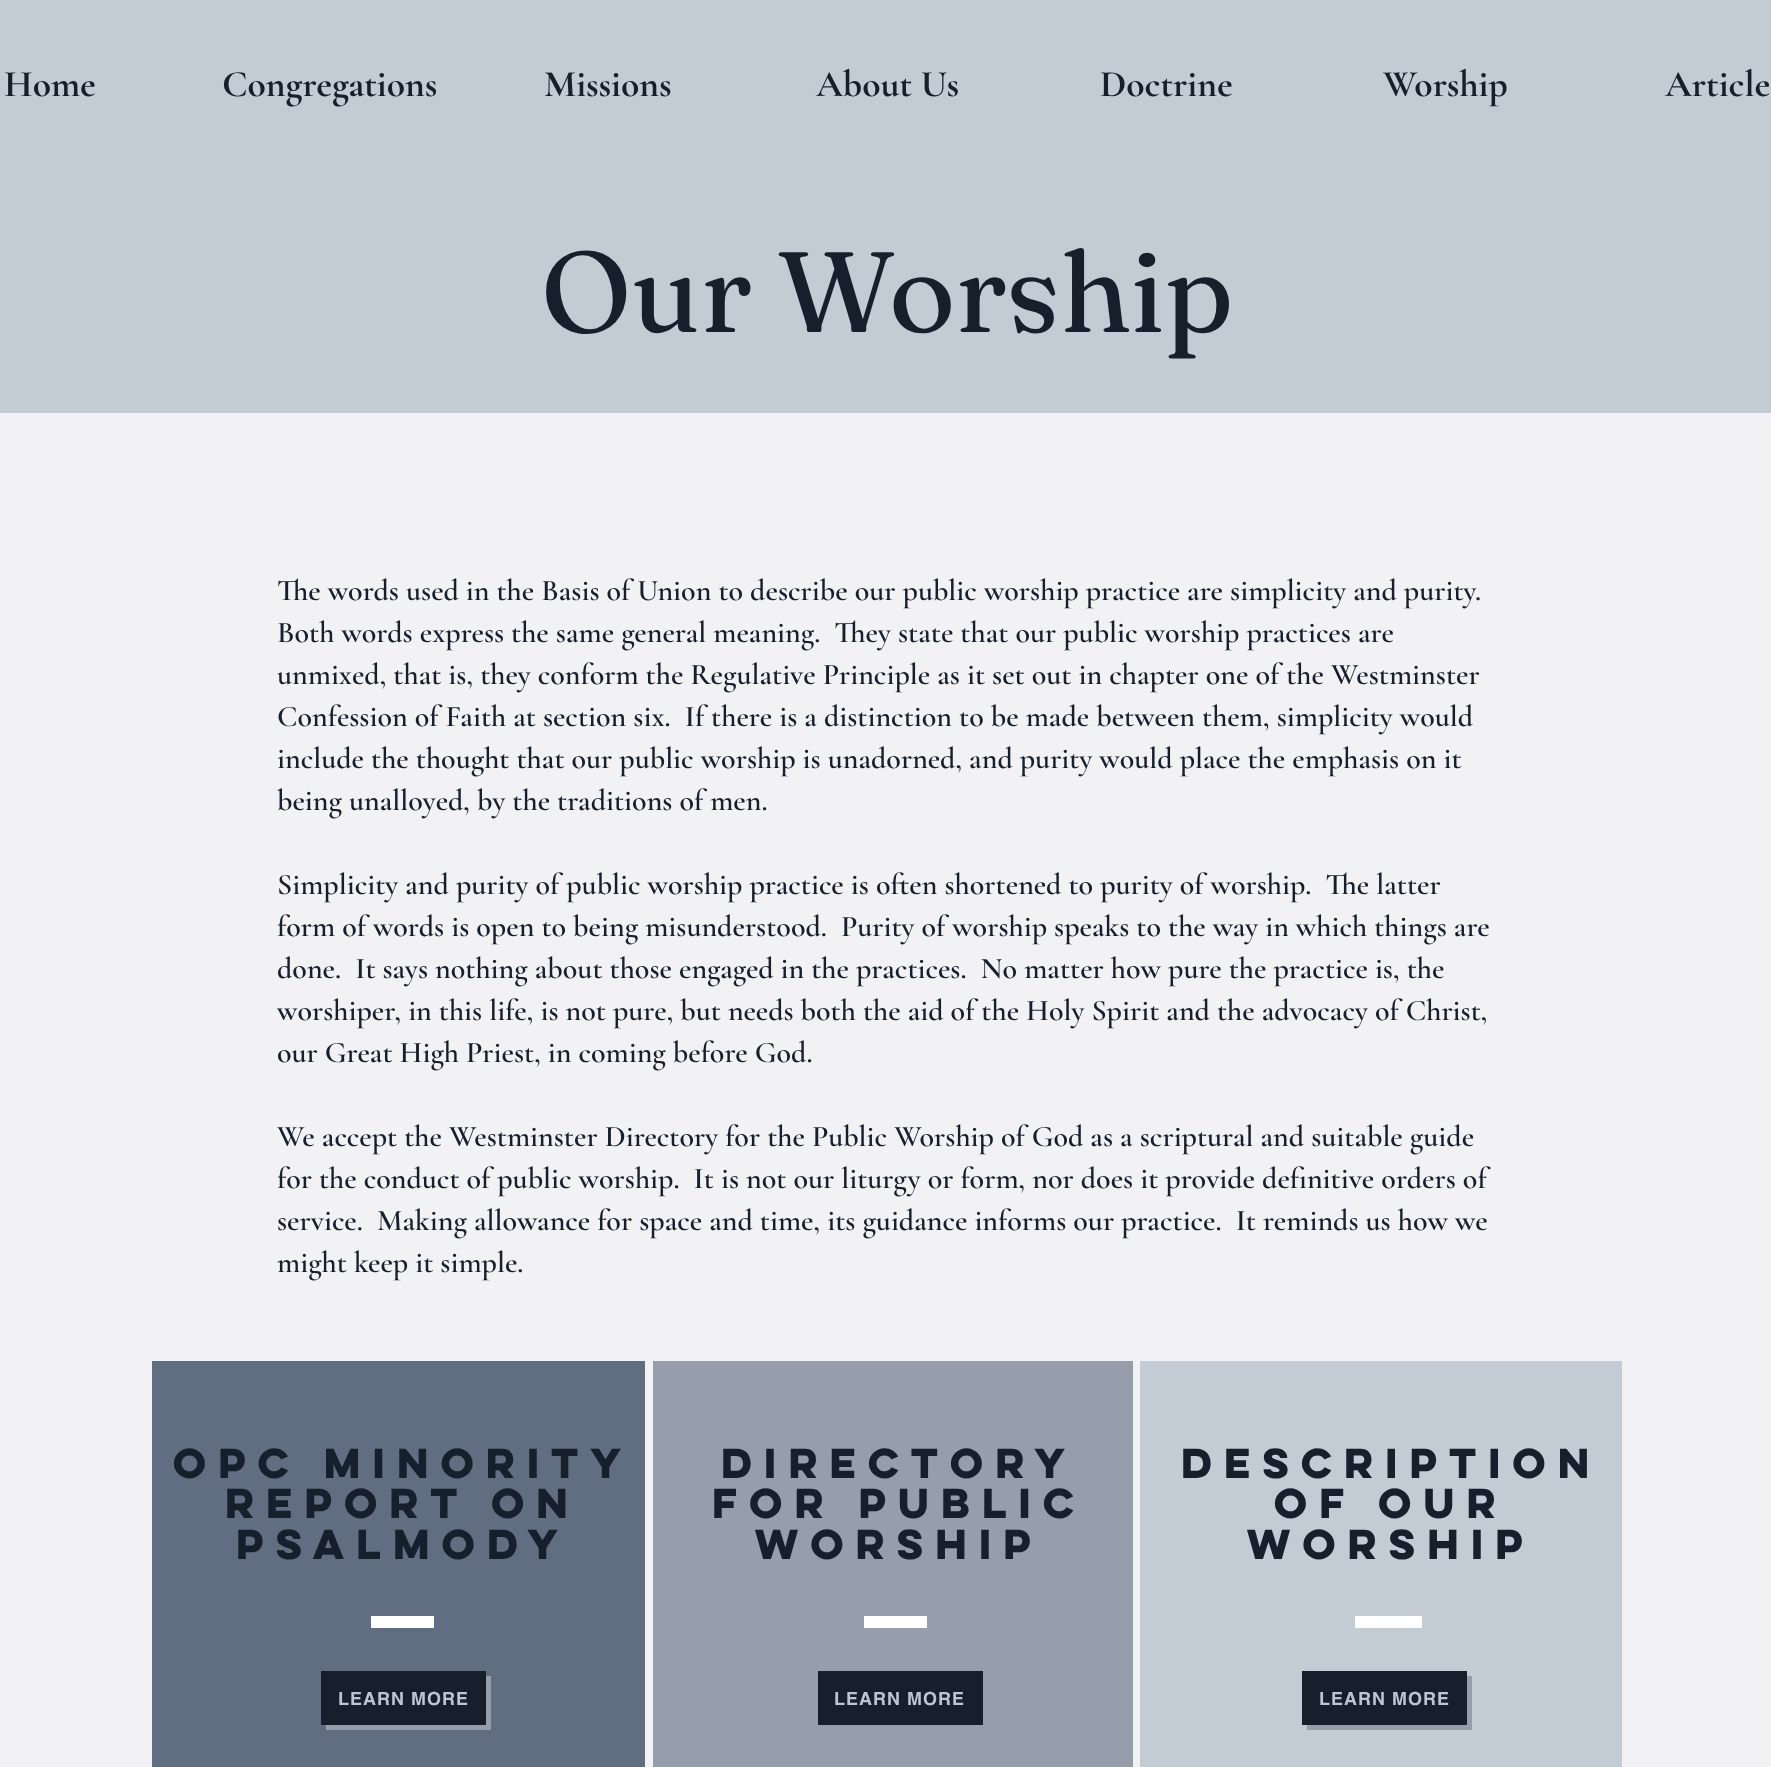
<svg xmlns="http://www.w3.org/2000/svg" width="1771" height="1767" viewBox="0 0 1771 1767">
  <rect width="100%" height="100%" fill="rgb(195,203,213)"/>
  <g font-family="Cormorant Garamond" font-size="37.5" font-weight="bold" fill="rgb(22,31,44)">
    <text x="4" y="96">Home</text>
    <text x="222" y="96">Congregations</text>
    <text x="544" y="96">Missions</text>
    <text x="816" y="96">About Us</text>
    <text x="1100" y="96">Doctrine</text>
    <text x="1383" y="96">Worship</text>
    <text x="1665" y="96">Article</text>
  </g>
  <text x="541" y="332" font-family="Fraunces" font-size="114" fill="rgb(22,31,44)">Our Worship</text>
  <rect x="0" y="413" width="1771" height="1354" fill="rgb(242,242,244)"/>
  <g font-family="Cormorant Garamond" font-size="30" font-weight="600" fill="rgb(22,31,44)">
    <text xml:space="preserve"><tspan x="277" y="600">The words used in the Basis of Union to describe our public worship practice are simplicity and purity.</tspan><tspan x="277" y="642">Both words express the same general meaning.  They state that our public worship practices are</tspan><tspan x="277" y="684">unmixed, that is, they conform the Regulative Principle as it set out in chapter one of the Westminster</tspan><tspan x="277" y="726">Confession of Faith at section six.  If there is a distinction to be made between them, simplicity would</tspan><tspan x="277" y="768">include the thought that our public worship is unadorned, and purity would place the emphasis on it</tspan><tspan x="277" y="810">being unalloyed, by the traditions of men.</tspan></text>
    <text xml:space="preserve"><tspan x="277" y="894">Simplicity and purity of public worship practice is often shortened to purity of worship.  The latter</tspan><tspan x="277" y="936">form of words is open to being misunderstood.  Purity of worship speaks to the way in which things are</tspan><tspan x="277" y="978">done.  It says nothing about those engaged in the practices.  No matter how pure the practice is, the</tspan><tspan x="277" y="1020">worshiper, in this life, is not pure, but needs both the aid of the Holy Spirit and the advocacy of Christ,</tspan><tspan x="277" y="1062">our Great High Priest, in coming before God.</tspan></text>
    <text xml:space="preserve"><tspan x="277" y="1146">We accept the Westminster Directory for the Public Worship of God as a scriptural and suitable guide</tspan><tspan x="277" y="1188">for the conduct of public worship.  It is not our liturgy or form, nor does it provide definitive orders of</tspan><tspan x="277" y="1230">service.  Making allowance for space and time, its guidance informs our practice.  It reminds us how we</tspan><tspan x="277" y="1272">might keep it simple.</tspan></text>
  </g>
  <rect x="152" y="1361" width="493" height="406" fill="rgb(97,110,129)"/>
  <g font-family="'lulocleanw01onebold'" font-size="37.5" font-weight="bold" letter-spacing="3.75" fill="rgb(22,31,44)">
    <text x="173" y="1478">opc minority</text>
    <text x="225" y="1518">report on</text>
    <text x="236" y="1559">psalmody</text>
  </g>
  <rect x="371" y="1616" width="63" height="12" fill="rgb(255,255,255)"/>
  <path d="M326 1725V1730H491V1676H486V1725Z" fill="rgb(150,158,171)"/>
  <rect x="321" y="1671" width="165" height="54" fill="rgb(22,31,44)"/>
  <text x="338" y="1705" font-family="helvetica" font-size="18" font-weight="bold" letter-spacing="1" fill="rgb(187,198,213)">LEARN MORE</text>
  <rect x="653" y="1361" width="480" height="406" fill="rgb(150,158,171)"/>
  <g font-family="'lulocleanw01onebold'" font-size="37.5" font-weight="bold" letter-spacing="3.75" fill="rgb(22,31,44)">
    <text x="721" y="1478">directory</text>
    <text x="712" y="1518">for public</text>
    <text x="755" y="1559">worship</text>
  </g>
  <rect x="864" y="1616" width="63" height="12" fill="rgb(255,255,255)"/>
  <rect x="818" y="1671" width="165" height="54" fill="rgb(22,31,44)"/>
  <text x="834" y="1705" font-family="helvetica" font-size="18" font-weight="bold" letter-spacing="1" fill="rgb(187,198,213)">LEARN MORE</text>
  <rect x="1140" y="1361" width="482" height="406" fill="rgb(195,203,213)"/>
  <g font-family="'lulocleanw01onebold'" font-size="37.5" font-weight="bold" letter-spacing="3.75" fill="rgb(22,31,44)">
    <text x="1181" y="1478">description</text>
    <text x="1274" y="1518">of our</text>
    <text x="1247" y="1559">worship</text>
  </g>
  <rect x="1355" y="1616" width="67" height="12" fill="rgb(255,255,255)"/>
  <path d="M1307 1725V1730H1472V1676H1467V1725Z" fill="rgb(150,158,171)"/>
  <rect x="1302" y="1671" width="165" height="54" fill="rgb(22,31,44)"/>
  <text x="1319" y="1705" font-family="helvetica" font-size="18" font-weight="bold" letter-spacing="1" fill="rgb(187,198,213)">LEARN MORE</text>
</svg>
